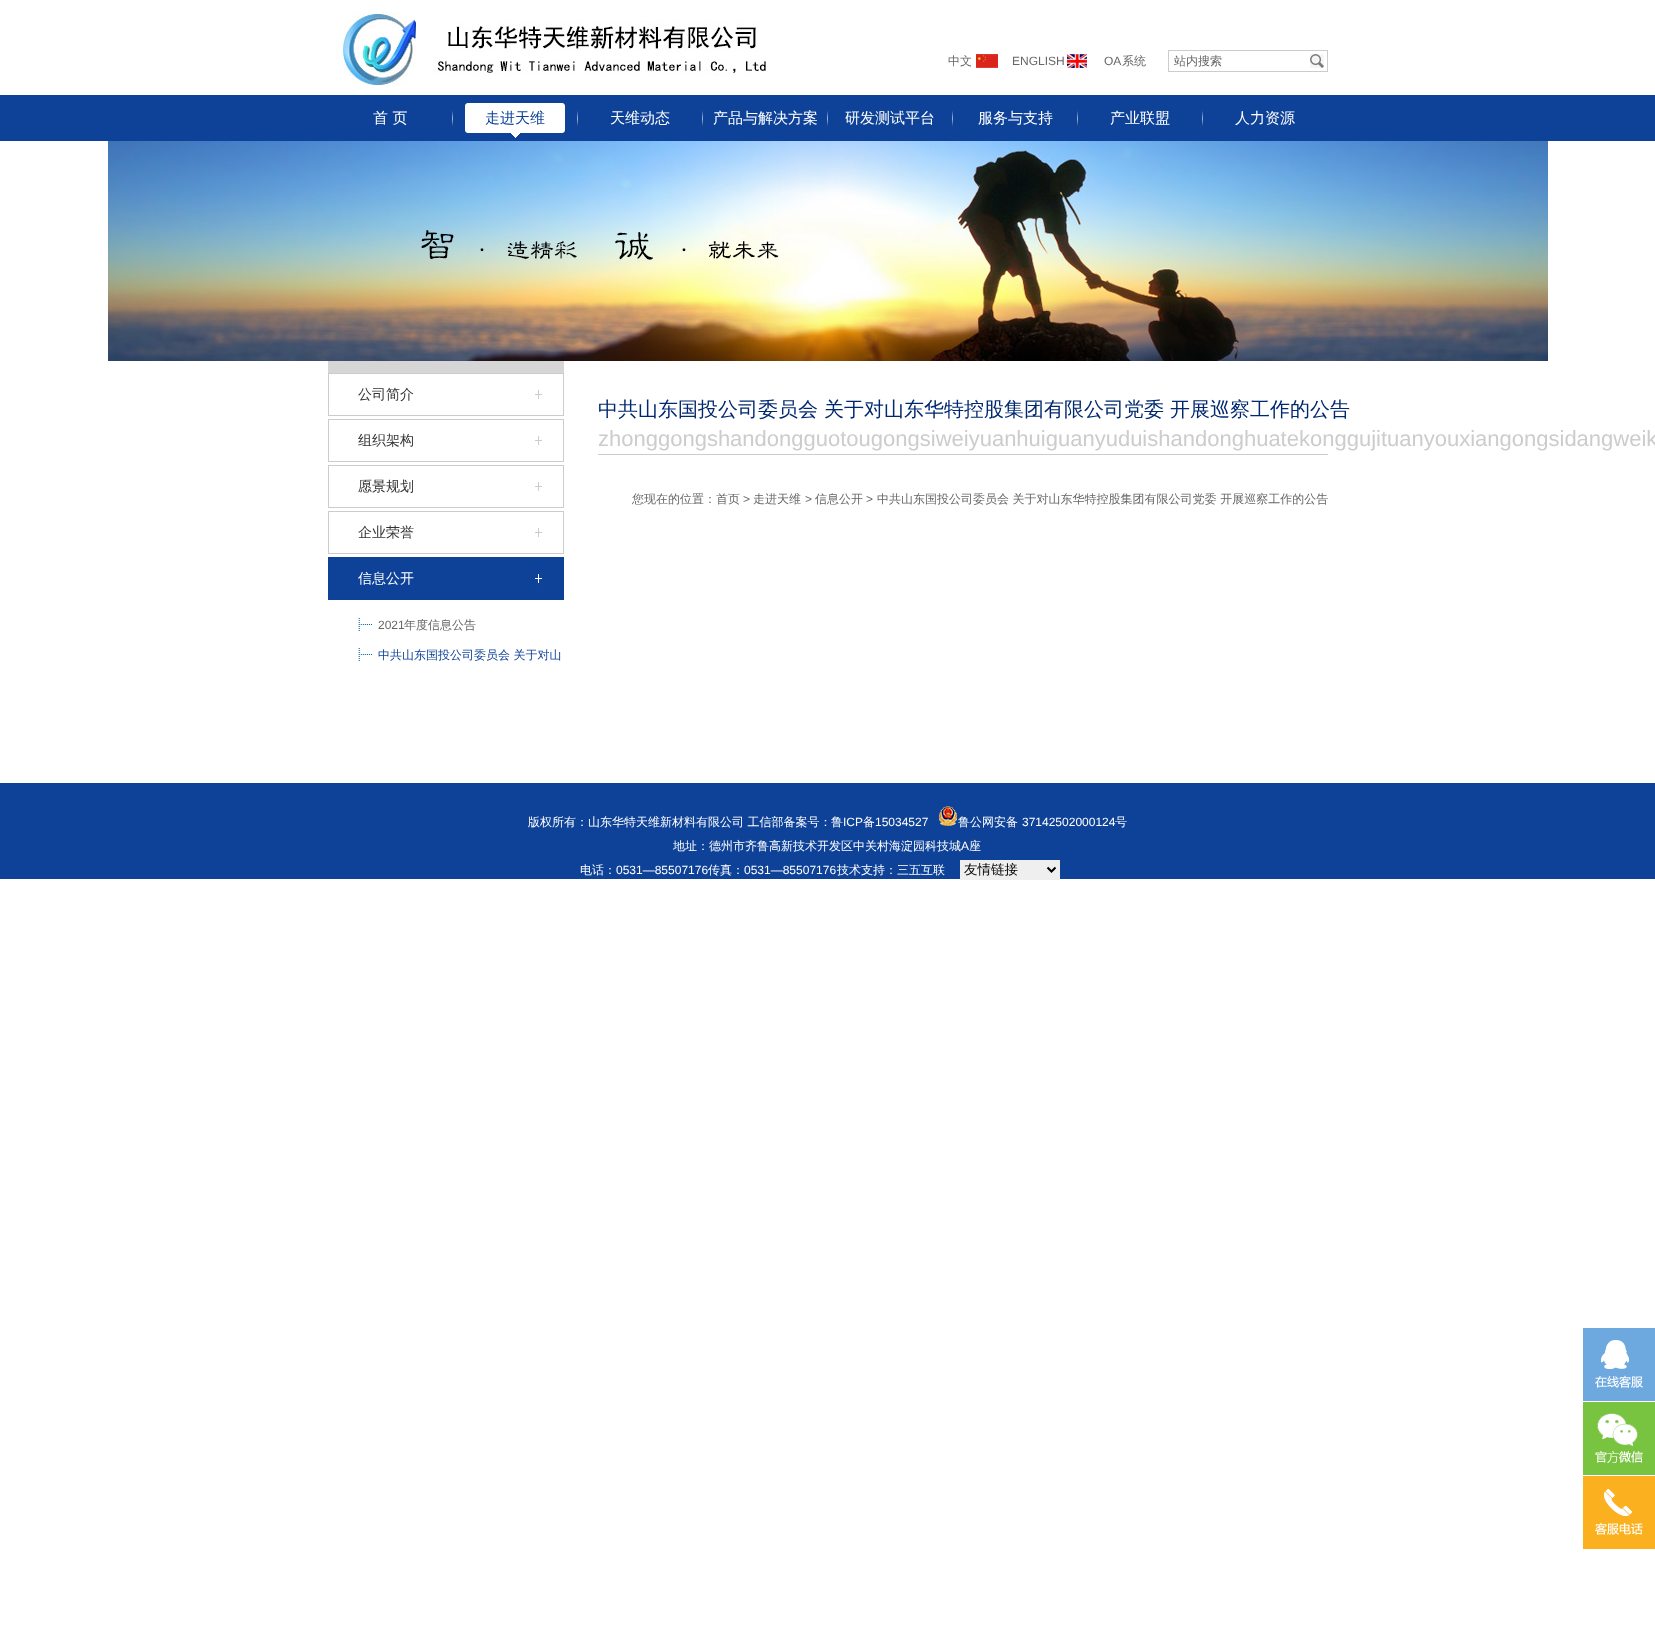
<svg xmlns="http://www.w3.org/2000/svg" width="1655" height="1633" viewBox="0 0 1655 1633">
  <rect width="100%" height="100%" fill="rgb(255,255,255)"/>
  <image x="336" y="12" width="431" height="74" href="pic1.png"/>
  <text x="948" y="65" font-family="WenQuanYi Zen Hei" font-size="12" font-weight="500" fill="rgb(102,102,102)">中文</text>
  <image x="976" y="54" width="22" height="14" href="pic2.png"/>
  <text x="1012" y="65" font-family="Liberation Sans" font-size="12" fill="rgb(102,102,102)">ENGLISH</text>
  <image x="1067" y="54" width="20" height="14" href="pic3.png"/>
  <text x="1104" y="65" font-family="Liberation Sans" font-size="12" fill="rgb(102,102,102)">OA</text>
  <text x="1122" y="65" font-family="WenQuanYi Zen Hei" font-size="12" font-weight="500" fill="rgb(102,102,102)">系统</text>
  <rect x="1168.5" y="50.5" width="159" height="21" fill="none" stroke="rgb(204,204,204)"/>
  <text x="1174" y="65" font-family="WenQuanYi Zen Hei" font-size="12" font-weight="500" fill="rgb(102,102,102)">站内搜索</text>
  <image x="1310" y="54" width="14" height="14" href="pic4.png"/>
  <rect x="0" y="95" width="1655" height="46" fill="rgb(14,66,152)"/>
  <image x="452" y="111" width="1" height="15" href="pic5.png"/>
  <text x="373" y="123" font-family="WenQuanYi Zen Hei" font-size="15" font-weight="500" fill="rgb(255,255,255)">首 页</text>
  <image x="577" y="111" width="1" height="15" href="pic5.png"/>
  <image x="465" y="103" width="100" height="35" href="pic6.png"/>
  <text x="485" y="123" font-family="WenQuanYi Zen Hei" font-size="15" font-weight="500" fill="rgb(14,66,152)">走进天维</text>
  <image x="702" y="111" width="1" height="15" href="pic5.png"/>
  <text x="610" y="123" font-family="WenQuanYi Zen Hei" font-size="15" font-weight="500" fill="rgb(255,255,255)">天维动态</text>
  <image x="827" y="111" width="1" height="15" href="pic5.png"/>
  <text x="713" y="123" font-family="WenQuanYi Zen Hei" font-size="15" font-weight="500" fill="rgb(255,255,255)">产品与解决方案</text>
  <image x="952" y="111" width="1" height="15" href="pic5.png"/>
  <text x="845" y="123" font-family="WenQuanYi Zen Hei" font-size="15" font-weight="500" fill="rgb(255,255,255)">研发测试平台</text>
  <image x="1077" y="111" width="1" height="15" href="pic5.png"/>
  <text x="978" y="123" font-family="WenQuanYi Zen Hei" font-size="15" font-weight="500" fill="rgb(255,255,255)">服务与支持</text>
  <image x="1202" y="111" width="1" height="15" href="pic5.png"/>
  <g font-family="WenQuanYi Zen Hei" font-size="15" font-weight="500" fill="rgb(255,255,255)">
    <text x="1110" y="123">产业联盟</text>
    <text x="1235" y="123">人力资源</text>
  </g>
  <image x="108" y="141" width="1440" height="220" href="pic7.png"/>
  <rect x="328" y="361" width="236" height="12" fill="rgb(214,214,214)"/>
  <image x="328" y="373" width="236" height="43" href="pic8.png"/>
  <text x="358" y="399" font-family="WenQuanYi Zen Hei" font-size="14" font-weight="500" fill="rgb(51,51,51)">公司简介</text>
  <image x="328" y="419" width="236" height="43" href="pic8.png"/>
  <text x="358" y="445" font-family="WenQuanYi Zen Hei" font-size="14" font-weight="500" fill="rgb(51,51,51)">组织架构</text>
  <image x="328" y="465" width="236" height="43" href="pic8.png"/>
  <text x="358" y="491" font-family="WenQuanYi Zen Hei" font-size="14" font-weight="500" fill="rgb(51,51,51)">愿景规划</text>
  <image x="328" y="511" width="236" height="43" href="pic8.png"/>
  <text x="358" y="537" font-family="WenQuanYi Zen Hei" font-size="14" font-weight="500" fill="rgb(51,51,51)">企业荣誉</text>
  <image x="328" y="557" width="236" height="43" href="pic9.png"/>
  <text x="358" y="583" font-family="WenQuanYi Zen Hei" font-size="14" font-weight="500" fill="rgb(255,255,255)">信息公开</text>
  <image x="358" y="618" width="14" height="13" href="pic10.png"/>
  <text x="378" y="629" font-family="Liberation Sans" font-size="12" fill="rgb(102,102,102)">2021</text>
  <text x="404" y="629" font-family="WenQuanYi Zen Hei" font-size="12" font-weight="500" fill="rgb(102,102,102)">年度信息公告</text>
  <image x="358" y="648" width="14" height="13" href="pic10.png"/>
  <text x="378" y="659" font-family="WenQuanYi Zen Hei" font-size="12" font-weight="500" fill="rgb(14,66,152)">中共山东国投公司委员会 关于对山</text>
  <rect x="598" y="454" width="730" height="1" fill="rgb(204,204,204)"/>
  <text x="598" y="416" font-family="WenQuanYi Zen Hei" font-size="20" font-weight="500" fill="rgb(0,40,112)">中共山东国投公司委员会 关于对山东华特控股集团有限公司党委 开展巡察工作的公告</text>
  <text x="598" y="446" font-family="Liberation Sans" font-size="22" fill="rgb(204,204,204)">zhonggongshandongguotougongsiweiyuanhuiguanyuduishandonghuatekonggujituanyouxiangongsidangweik</text>
  <text x="632" y="503" font-family="WenQuanYi Zen Hei" font-size="12" font-weight="500" fill="rgb(102,102,102)">您现在的位置：首页</text>
  <text x="743" y="503" font-family="Liberation Sans" font-size="12" fill="rgb(102,102,102)">&gt;</text>
  <text x="753" y="503" font-family="WenQuanYi Zen Hei" font-size="12" font-weight="500" fill="rgb(102,102,102)">走进天维</text>
  <text x="805" y="503" font-family="Liberation Sans" font-size="12" fill="rgb(102,102,102)">&gt;</text>
  <text x="815" y="503" font-family="WenQuanYi Zen Hei" font-size="12" font-weight="500" fill="rgb(102,102,102)">信息公开</text>
  <text x="866" y="503" font-family="Liberation Sans" font-size="12" fill="rgb(102,102,102)">&gt;</text>
  <text x="877" y="503" font-family="WenQuanYi Zen Hei" font-size="12" font-weight="500" fill="rgb(102,102,102)">中共山东国投公司委员会 关于对山东华特控股集团有限公司党委 开展巡察工作的公告</text>
  <rect x="0" y="783" width="1655" height="96" fill="rgb(14,66,152)"/>
  <g font-family="WenQuanYi Zen Hei" font-size="12" font-weight="500" fill="rgb(255,255,255)">
    <text x="528" y="826">版权所有：山东华特天维新材料有限公司 工信部备案号：</text>
    <text x="831" y="826">鲁</text>
  </g>
  <text x="843" y="826" font-family="Liberation Sans" font-size="12" fill="rgb(255,255,255)">ICP</text>
  <text x="863" y="826" font-family="WenQuanYi Zen Hei" font-size="12" font-weight="500" fill="rgb(255,255,255)">备</text>
  <text x="875" y="826" font-family="Liberation Sans" font-size="12" fill="rgb(255,255,255)">15034527</text>
  <image x="939" y="806" width="18" height="20" href="pic11.png"/>
  <text x="958" y="826" font-family="WenQuanYi Zen Hei" font-size="12" font-weight="500" fill="rgb(255,255,255)">鲁公网安备</text>
  <text x="1022" y="826" font-family="Liberation Sans" font-size="12" fill="rgb(255,255,255)">37142502000124</text>
  <g font-family="WenQuanYi Zen Hei" font-size="12" font-weight="500" fill="rgb(255,255,255)">
    <text x="1115" y="826">号</text>
    <text x="673" y="850">地址：德州市齐鲁高新技术开发区中关村海淀园科技城</text>
  </g>
  <text x="961" y="850" font-family="Liberation Sans" font-size="12" fill="rgb(255,255,255)">A</text>
  <g font-family="WenQuanYi Zen Hei" font-size="12" font-weight="500" fill="rgb(255,255,255)">
    <text x="969" y="850">座</text>
    <text x="580" y="874">电话：</text>
  </g>
  <text x="616" y="874" font-family="Liberation Sans" font-size="12" fill="rgb(255,255,255)">0531—85507176</text>
  <text x="708" y="874" font-family="WenQuanYi Zen Hei" font-size="12" font-weight="500" fill="rgb(255,255,255)">传真：</text>
  <text x="744" y="874" font-family="Liberation Sans" font-size="12" fill="rgb(255,255,255)">0531—85507176</text>
  <text x="837" y="874" font-family="WenQuanYi Zen Hei" font-size="12" font-weight="500" fill="rgb(255,255,255)">技术支持：三五互联</text>
  <rect x="960" y="860" width="100" height="20" fill="rgb(239,239,239)"/>
  <path d="M1047.5 867.5L1051.5 871.5L1055.5 867.5" fill="none" stroke="rgb(0,0,0)" stroke-width="2"/>
  <text x="964" y="874" font-family="WenQuanYi Zen Hei" font-size="13.5" font-weight="500" fill="rgb(0,0,0)">友情链接</text>
  <rect x="1583" y="1328" width="72" height="73" fill="rgb(109,169,222)"/>
  <image x="1595" y="1340" width="48" height="48" href="pic12.png"/>
  <rect x="1583" y="1402" width="72" height="73" fill="rgb(120,195,64)"/>
  <image x="1595" y="1413" width="48" height="50" href="pic13.png"/>
  <rect x="1583" y="1476" width="72" height="73" fill="rgb(251,176,31)"/>
  <image x="1595" y="1489" width="48" height="46" href="pic14.png"/>
</svg>
